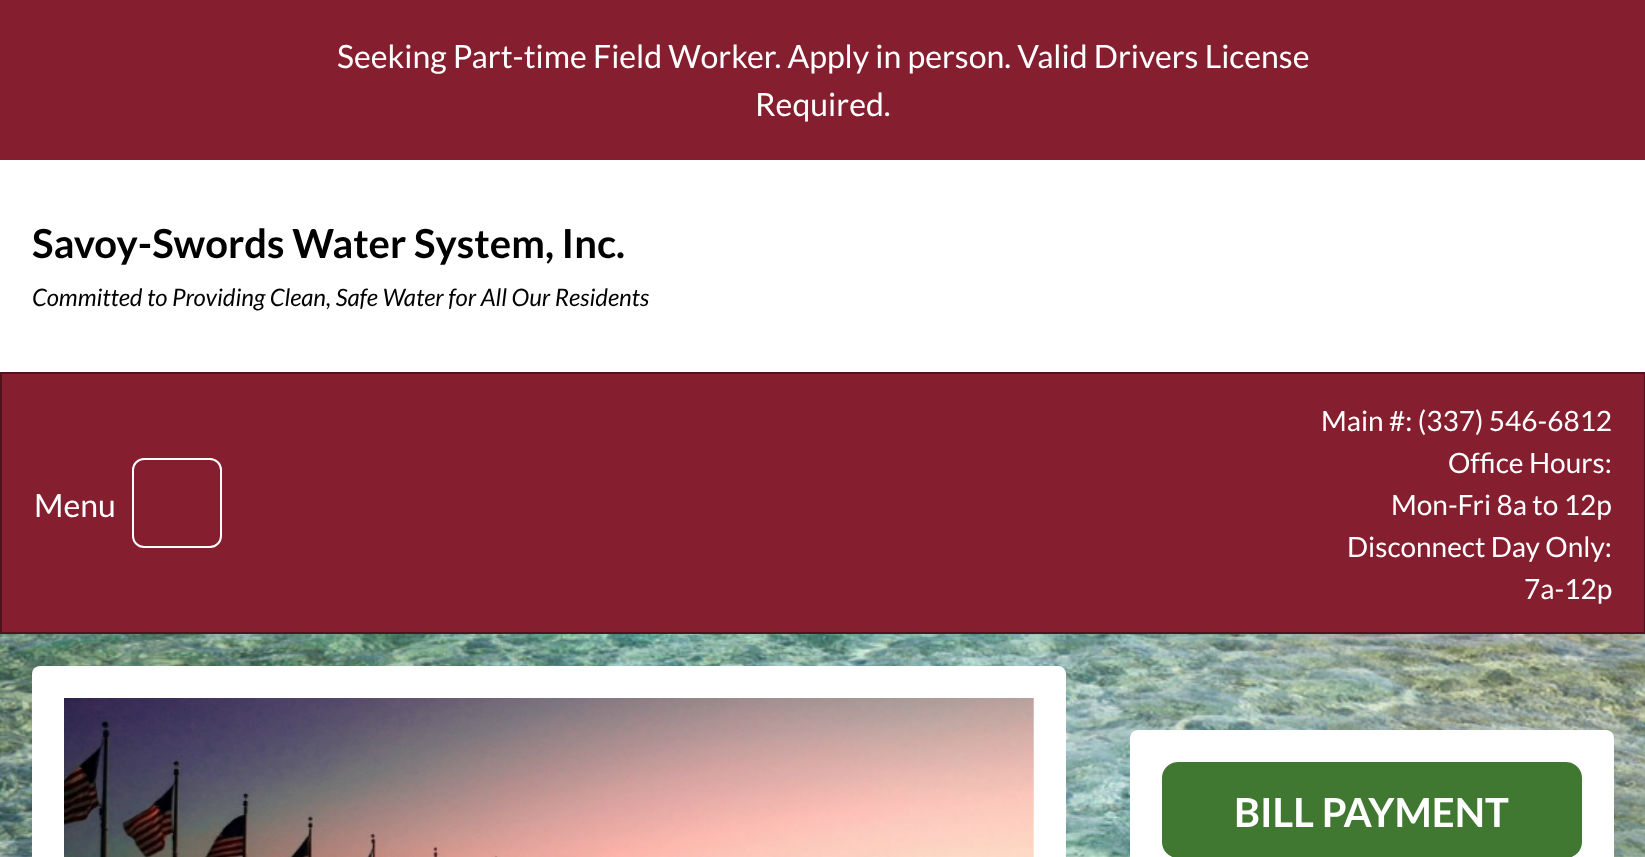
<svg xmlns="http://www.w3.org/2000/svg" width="1645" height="857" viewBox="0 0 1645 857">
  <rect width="100%" height="100%" fill="rgb(255,255,255)"/>
  <image x="0" y="634" width="1645" height="223" href="pic1.png"/>
  <rect x="0" y="0" width="1645" height="160" fill="rgb(133,30,47)"/>
  <g font-family="Lato" font-size="32" fill="rgb(255,255,255)">
    <text x="337" y="68">Seeking Part-time Field Worker. Apply in person. Valid Drivers License</text>
    <text x="755" y="116">Required.</text>
  </g>
  <text x="32" y="258" font-family="Lato" font-size="40" font-weight="bold" fill="rgb(0,0,0)">Savoy-Swords Water System, Inc.</text>
  <text x="32" y="306" font-family="Lato" font-size="24" font-style="italic" fill="rgb(0,0,0)">Committed to Providing Clean, Safe Water for All Our Residents</text>
  <rect x="1" y="373" width="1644" height="260" fill="rgb(133,30,47)" stroke="rgb(80,18,28)" stroke-width="2"/>
  <text x="34" y="517" font-family="Lato" font-size="32" fill="rgb(255,255,255)">Menu</text>
  <rect x="133" y="459" width="88" height="88" rx="11" fill="none" stroke="rgb(255,255,255)" stroke-width="2"/>
  <g font-family="Lato" font-size="28" fill="rgb(255,255,255)">
    <text x="1321" y="431">Main #: (337) 546-6812</text>
    <text x="1448" y="473">Office Hours:</text>
    <text x="1391" y="515">Mon-Fri 8a to 12p</text>
    <text x="1347" y="557">Disconnect Day Only:</text>
    <text x="1524" y="599">7a-12p</text>
  </g>
  <rect x="32" y="666" width="1034" height="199" rx="8" fill="rgb(255,255,255)"/>
  <image x="64" y="698" width="970" height="159" href="pic2.png"/>
  <rect x="1130" y="730" width="484" height="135" rx="8" fill="rgb(255,255,255)"/>
  <rect x="1163" y="763" width="418" height="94" rx="15" fill="rgb(65,120,49)" stroke="rgb(65,120,49)" stroke-width="2"/>
  <text x="1234" y="827" font-family="Lato" font-size="40" font-weight="bold" fill="rgb(255,255,255)">BILL PAYMENT</text>
</svg>
